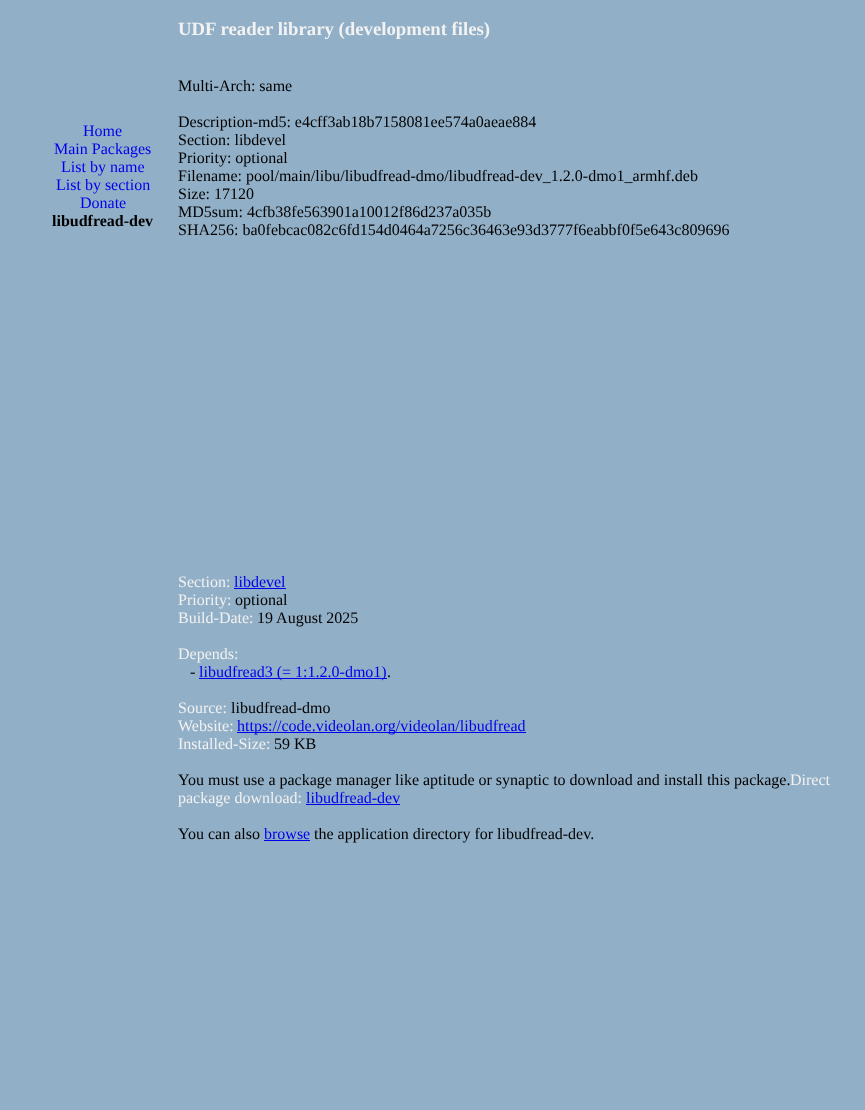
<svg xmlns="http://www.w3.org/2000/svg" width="865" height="1110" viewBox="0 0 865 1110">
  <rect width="100%" height="100%" fill="rgb(145,175,198)"/>
  <g font-family="Liberation Serif" font-size="16" fill="rgb(0,0,238)">
    <text x="83" y="136">Home</text>
    <text x="54" y="154">Main Packages</text>
    <text x="61" y="172">List by name</text>
    <text x="56" y="190">List by section</text>
    <text x="80" y="208">Donate</text>
  </g>
  <text x="52" y="226" font-family="Liberation Serif" font-size="16" font-weight="bold" fill="rgb(0,0,0)">libudfread-dev</text>
  <text x="178" y="35" font-family="Liberation Serif" font-size="18.75" font-weight="bold" fill="rgb(242,242,242)">UDF reader library (development files)</text>
  <g font-family="Liberation Serif" font-size="16" fill="rgb(0,0,0)">
    <text x="178" y="91">Multi-Arch: same</text>
    <text>
      <tspan x="178" y="127">Description-md5: e4cff3ab18b7158081ee574a0aeae884</tspan>
      <tspan x="178" y="145">Section: libdevel</tspan>
      <tspan x="178" y="163">Priority: optional</tspan>
      <tspan x="178" y="181">Filename: pool/main/libu/libudfread-dmo/libudfread-dev_1.2.0-dmo1_armhf.deb</tspan>
      <tspan x="178" y="199">Size: 17120</tspan>
      <tspan x="178" y="217">MD5sum: 4cfb38fe563901a10012f86d237a035b</tspan>
      <tspan x="178" y="235">SHA256: ba0febcac082c6fd154d0464a7256c36463e93d3777f6eabbf0f5e643c809696</tspan>
    </text>
  </g>
  <text x="178" y="587" font-family="Liberation Serif" font-size="16" fill="rgb(242,242,242)">Section:</text>
  <text x="234" y="587" font-family="Liberation Serif" font-size="16" fill="rgb(0,0,238)">libdevel</text>
  <rect x="234" y="588" width="52" height="1" fill="rgb(0,0,238)"/>
  <text x="178" y="605" font-family="Liberation Serif" font-size="16" fill="rgb(242,242,242)">Priority:</text>
  <text x="235" y="605" font-family="Liberation Serif" font-size="16" fill="rgb(0,0,0)">optional</text>
  <text x="178" y="623" font-family="Liberation Serif" font-size="16" fill="rgb(242,242,242)">Build-Date:</text>
  <text x="257" y="623" font-family="Liberation Serif" font-size="16" fill="rgb(0,0,0)">19 August 2025</text>
  <text x="178" y="659" font-family="Liberation Serif" font-size="16" fill="rgb(242,242,242)">Depends:</text>
  <text x="190" y="677" font-family="Liberation Serif" font-size="16" fill="rgb(0,0,0)">-</text>
  <rect x="199" y="678" width="188" height="1" fill="rgb(0,0,238)"/>
  <text x="199" y="677" font-family="Liberation Serif" font-size="16" fill="rgb(0,0,238)">libudfread3 (= 1:1.2.0-dmo1)</text>
  <text x="387" y="677" font-family="Liberation Serif" font-size="16" fill="rgb(0,0,0)">.</text>
  <text x="178" y="713" font-family="Liberation Serif" font-size="16" fill="rgb(242,242,242)">Source:</text>
  <text x="231" y="713" font-family="Liberation Serif" font-size="16" fill="rgb(0,0,0)">libudfread-dmo</text>
  <text x="178" y="731" font-family="Liberation Serif" font-size="16" fill="rgb(242,242,242)">Website:</text>
  <rect x="237" y="732" width="289" height="1" fill="rgb(0,0,238)"/>
  <text x="237" y="731" font-family="Liberation Serif" font-size="16" fill="rgb(0,0,238)">https://code.videolan.org/videolan/libudfread</text>
  <text x="178" y="749" font-family="Liberation Serif" font-size="16" fill="rgb(242,242,242)">Installed-Size:</text>
  <g font-family="Liberation Serif" font-size="16" fill="rgb(0,0,0)">
    <text x="274" y="749">59 KB</text>
    <text x="178" y="785">You must use a package manager like aptitude or synaptic to download and install this package.</text>
  </g>
  <g font-family="Liberation Serif" font-size="16" fill="rgb(242,242,242)">
    <text x="790" y="785">Direct</text>
    <text x="178" y="803">package download:</text>
  </g>
  <text x="306" y="803" font-family="Liberation Serif" font-size="16" fill="rgb(0,0,238)">libudfread-dev</text>
  <rect x="306" y="804" width="94" height="1" fill="rgb(0,0,238)"/>
  <text x="178" y="839" font-family="Liberation Serif" font-size="16" fill="rgb(0,0,0)">You can also</text>
  <text x="264" y="839" font-family="Liberation Serif" font-size="16" fill="rgb(0,0,238)">browse</text>
  <rect x="264" y="840" width="46" height="1" fill="rgb(0,0,238)"/>
  <text x="314" y="839" font-family="Liberation Serif" font-size="16" fill="rgb(0,0,0)">the application directory for libudfread-dev.</text>
</svg>
